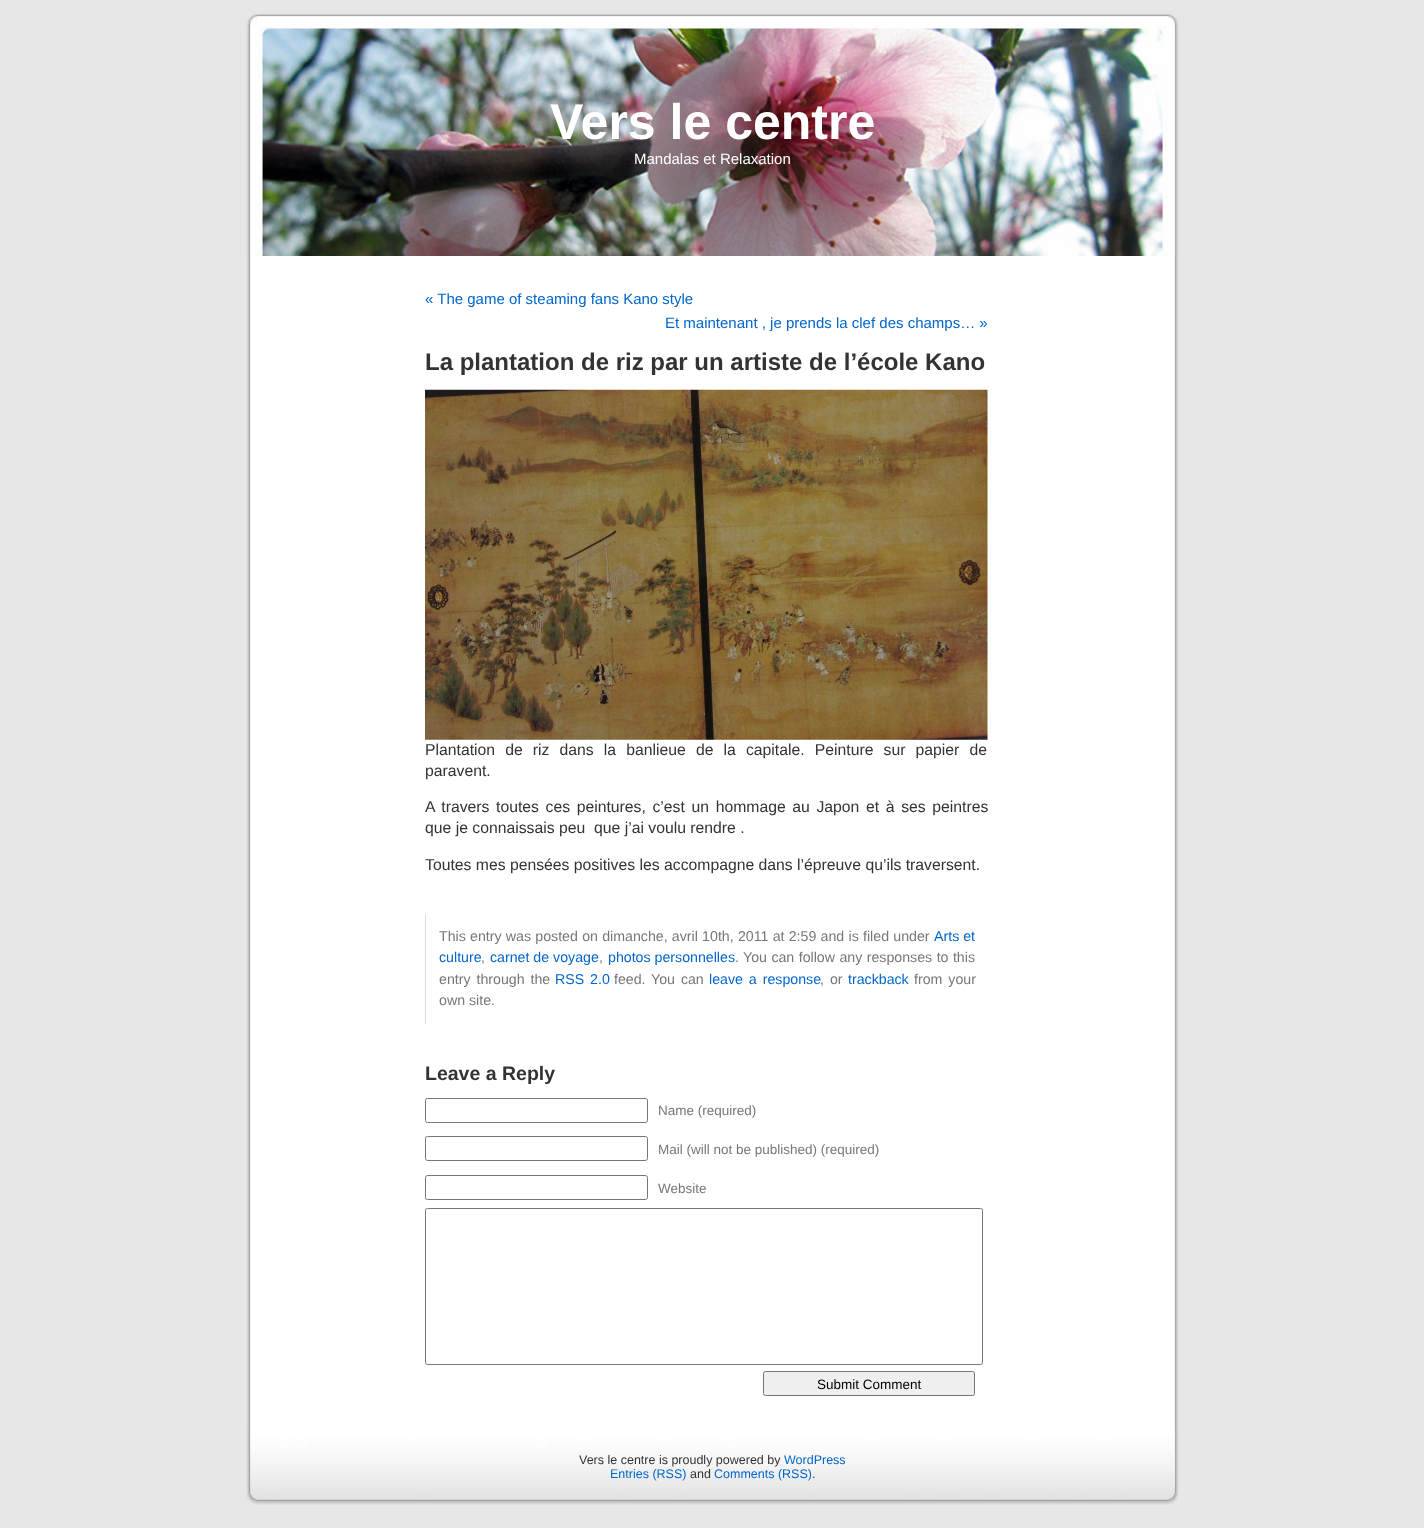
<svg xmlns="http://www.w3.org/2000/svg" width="1424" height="1528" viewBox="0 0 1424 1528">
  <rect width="100%" height="100%" fill="rgb(231,231,231)"/>
  <image x="246" y="256" width="933" height="1172" href="pic1.png"/>
  <image x="239" y="6" width="947" height="250" href="pic2.png"/>
  <text x="550" y="139" font-family="Liberation Sans" font-size="50" font-weight="bold" fill="rgb(255,255,255)">Vers le centre</text>
  <text x="634" y="164" font-family="Liberation Sans" font-size="15" fill="rgb(255,255,255)">Mandalas et Relaxation</text>
  <g font-family="Liberation Sans" font-size="15" fill="rgb(0,102,204)">
    <text x="425" y="304">« The game of steaming fans Kano style</text>
    <text x="665" y="328">Et maintenant , je prends la clef des champs… »</text>
  </g>
  <text x="425" y="370" font-family="Liberation Sans" font-size="24" font-weight="bold" fill="rgb(51,51,51)">La plantation de riz par un artiste de l’école Kano</text>
  <image x="425" y="389" width="563" height="351" href="pic3.png"/>
  <g font-family="Liberation Sans" font-size="15.75" fill="rgb(51,51,51)">
    <text>
      <tspan x="425" y="755" word-spacing="5.75">Plantation de riz dans la banlieue de la capitale. Peinture sur papier de</tspan>
      <tspan x="425" y="776">paravent.</tspan>
    </text>
    <text xml:space="preserve"><tspan x="425" y="812" word-spacing="2.25">A travers toutes ces peintures, c’est un hommage au Japon et à ses peintres</tspan><tspan x="425" y="833">que je connaissais peu  que j’ai voulu rendre .</tspan></text>
    <text x="425" y="870">Toutes mes pensées positives les accompagne dans l’épreuve qu’ils traversent.</text>
  </g>
  <rect x="425" y="914" width="1" height="110" fill="rgb(221,221,221)"/>
  <text x="439" y="941" word-spacing="0.3" font-family="Liberation Sans" font-size="14.2" fill="rgb(119,119,119)">This entry was posted on dimanche, avril 10th, 2011 at 2:59 and is filed under</text>
  <g font-family="Liberation Sans" font-size="14.2" fill="rgb(0,102,204)">
    <text x="934" y="941">Arts et</text>
    <text x="439" y="962">culture</text>
  </g>
  <text x="481" y="962" font-family="Liberation Sans" font-size="14.2" fill="rgb(119,119,119)">,</text>
  <text x="490" y="962" font-family="Liberation Sans" font-size="14.2" fill="rgb(0,102,204)">carnet de voyage</text>
  <text x="599" y="962" font-family="Liberation Sans" font-size="14.2" fill="rgb(119,119,119)">,</text>
  <text x="608" y="962" font-family="Liberation Sans" font-size="14.2" fill="rgb(0,102,204)">photos personnelles</text>
  <g font-family="Liberation Sans" font-size="14.2" fill="rgb(119,119,119)">
    <text x="735" y="962">.</text>
    <text x="743" y="962" word-spacing="0.5">You can follow any responses to this</text>
    <text x="439" y="984" word-spacing="2">entry through the</text>
  </g>
  <text x="555" y="984" word-spacing="2" font-family="Liberation Sans" font-size="14.2" fill="rgb(0,102,204)">RSS 2.0</text>
  <g font-family="Liberation Sans" font-size="14.2" fill="rgb(119,119,119)">
    <text x="614" y="984">feed.</text>
    <text x="651" y="984" word-spacing="2">You can</text>
  </g>
  <text x="709" y="984" word-spacing="2" font-family="Liberation Sans" font-size="14.2" fill="rgb(0,102,204)">leave a response</text>
  <text x="820" y="984" word-spacing="2" font-family="Liberation Sans" font-size="14.2" fill="rgb(119,119,119)">, or</text>
  <text x="848" y="984" font-family="Liberation Sans" font-size="14.2" fill="rgb(0,102,204)">trackback</text>
  <g font-family="Liberation Sans" font-size="14.2" fill="rgb(119,119,119)">
    <text x="914" y="984" word-spacing="2">from your</text>
    <text x="439" y="1005">own site.</text>
  </g>
  <text x="425" y="1080" font-family="Liberation Sans" font-size="19.5" font-weight="bold" fill="rgb(51,51,51)">Leave a Reply</text>
  <rect x="425.5" y="1098.5" width="222" height="24" rx="2" fill="none" stroke="rgb(118,118,118)"/>
  <text x="658" y="1115" font-family="Liberation Sans" font-size="13.5" fill="rgb(119,119,119)">Name (required)</text>
  <rect x="425.5" y="1136.5" width="222" height="24" rx="2" fill="none" stroke="rgb(118,118,118)"/>
  <text x="658" y="1154" font-family="Liberation Sans" font-size="13.5" fill="rgb(119,119,119)">Mail (will not be published) (required)</text>
  <rect x="425.5" y="1175.5" width="222" height="24" rx="2" fill="none" stroke="rgb(118,118,118)"/>
  <text x="658" y="1193" font-family="Liberation Sans" font-size="13.5" fill="rgb(119,119,119)">Website</text>
  <rect x="425.5" y="1208.5" width="557" height="156" rx="2" fill="none" stroke="rgb(118,118,118)"/>
  <rect x="763.5" y="1371.5" width="211" height="24" rx="2" fill="rgb(239,239,239)" stroke="rgb(118,118,118)"/>
  <text x="817" y="1389" font-family="Liberation Sans" font-size="13.5" fill="rgb(0,0,0)">Submit Comment</text>
  <image x="246" y="1428" width="933" height="77" href="pic4.png"/>
  <text x="579" y="1464" font-family="Liberation Sans" font-size="12.5" fill="rgb(51,51,51)">Vers le centre is proudly powered by</text>
  <g font-family="Liberation Sans" font-size="12.5" fill="rgb(0,102,204)">
    <text x="784" y="1464">WordPress</text>
    <text x="610" y="1478">Entries (RSS)</text>
  </g>
  <text x="690" y="1478" font-family="Liberation Sans" font-size="12.5" fill="rgb(51,51,51)">and</text>
  <text x="714" y="1478" font-family="Liberation Sans" font-size="12.5" fill="rgb(0,102,204)">Comments (RSS)</text>
  <text x="812" y="1478" font-family="Liberation Sans" font-size="12.5" fill="rgb(51,51,51)">.</text>
</svg>
